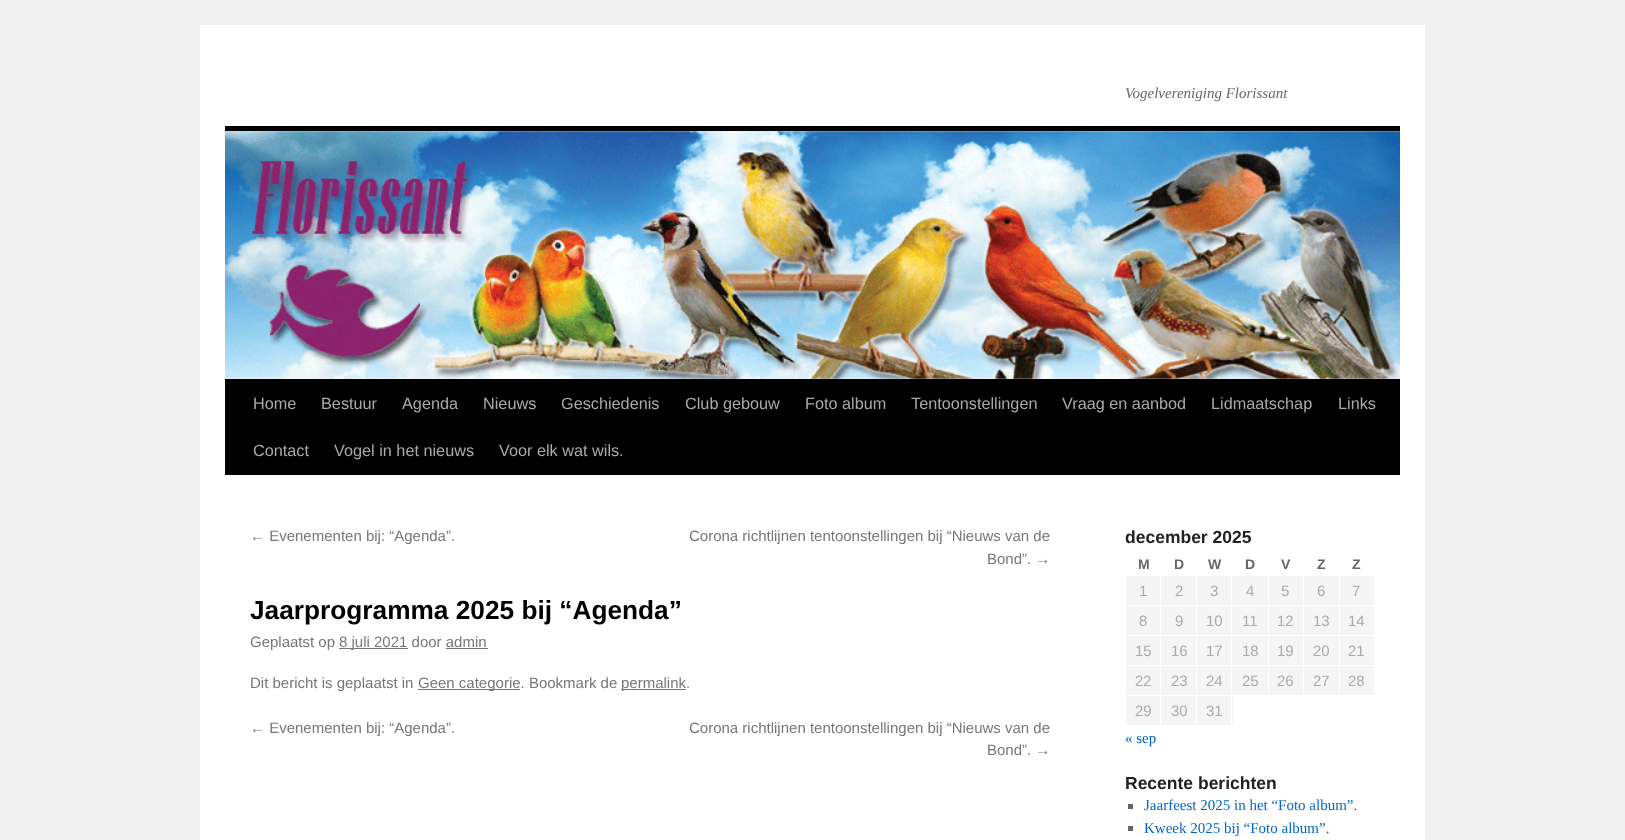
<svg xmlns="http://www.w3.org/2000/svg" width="1625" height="840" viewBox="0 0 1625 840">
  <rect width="100%" height="100%" fill="rgb(241,241,241)"/>
  <rect x="200" y="25" width="1225" height="815" fill="rgb(255,255,255)"/>
  <text x="1125" y="98" font-family="Liberation Serif" font-size="15" font-style="italic" fill="rgb(102,102,102)">Vogelvereniging Florissant</text>
  <rect x="225" y="126" width="1175" height="5" fill="rgb(0,0,0)"/>
  <rect x="225" y="379" width="1175" height="96" fill="rgb(0,0,0)"/>
  <image x="225" y="131" width="1175" height="248" href="pic1.png"/>
  <g font-family="Liberation Sans" font-size="16.25" fill="rgb(170,170,170)">
    <text x="253" y="409">Home</text>
    <text x="321" y="409">Bestuur</text>
    <text x="402" y="409">Agenda</text>
    <text x="483" y="409">Nieuws</text>
    <text x="561" y="409">Geschiedenis</text>
    <text x="685" y="409">Club gebouw</text>
    <text x="805" y="409">Foto album</text>
    <text x="911" y="409">Tentoonstellingen</text>
    <text x="1062" y="409">Vraag en aanbod</text>
    <text x="1211" y="409">Lidmaatschap</text>
    <text x="1338" y="409">Links</text>
    <text x="253" y="456">Contact</text>
    <text x="334" y="456">Vogel in het nieuws</text>
    <text x="499" y="456">Voor elk wat wils.</text>
  </g>
  <g font-family="Liberation Sans" font-size="15" fill="rgb(119,119,119)">
    <text x="250" y="541">← Evenementen bij: “Agenda”.</text>
    <text x="689" y="541">Corona richtlijnen tentoonstellingen bij “Nieuws van de</text>
    <text x="987" y="564">Bond”. →</text>
  </g>
  <text x="250" y="619" font-family="Liberation Sans" font-size="26.25" font-weight="bold" fill="rgb(0,0,0)">Jaarprogramma 2025 bij “Agenda”</text>
  <text x="250" y="647" font-family="Liberation Sans" font-size="15" fill="rgb(119,119,119)">Geplaatst op</text>
  <rect x="339" y="648" width="69" height="1" fill="rgb(119,119,119)"/>
  <text x="339" y="647" font-family="Liberation Sans" font-size="15" fill="rgb(119,119,119)">8 juli 2021 door admin</text>
  <rect x="446" y="648" width="42" height="1" fill="rgb(119,119,119)"/>
  <text x="250" y="688" font-family="Liberation Sans" font-size="15" fill="rgb(119,119,119)">Dit bericht is geplaatst in</text>
  <rect x="418" y="689" width="102" height="1" fill="rgb(119,119,119)"/>
  <text x="418" y="688" font-family="Liberation Sans" font-size="15" fill="rgb(119,119,119)">Geen categorie. Bookmark de</text>
  <rect x="621" y="689" width="65" height="1" fill="rgb(119,119,119)"/>
  <g font-family="Liberation Sans" font-size="15" fill="rgb(119,119,119)">
    <text x="621" y="688">permalink.</text>
    <text x="250" y="733">← Evenementen bij: “Agenda”.</text>
    <text x="689" y="733">Corona richtlijnen tentoonstellingen bij “Nieuws van de</text>
    <text x="987" y="755">Bond”. →</text>
  </g>
  <text x="1125" y="543" font-family="Liberation Sans" font-size="17.5" font-weight="bold" fill="rgb(34,34,34)">december 2025</text>
  <g font-family="Liberation Sans" font-size="14" font-weight="bold" fill="rgb(102,102,102)">
    <text x="1138" y="569">M</text>
    <text x="1174" y="569">D</text>
    <text x="1208" y="569">W</text>
    <text x="1245" y="569">D</text>
    <text x="1281" y="569">V</text>
    <text x="1317" y="569">Z</text>
    <text x="1352" y="569">Z</text>
  </g>
  <rect x="1126" y="576" width="34" height="29" fill="rgb(245,245,245)"/>
  <text x="1139" y="596" font-family="Liberation Sans" font-size="15" fill="rgb(170,170,170)">1</text>
  <rect x="1161" y="576" width="35" height="29" fill="rgb(245,245,245)"/>
  <text x="1175" y="596" font-family="Liberation Sans" font-size="15" fill="rgb(170,170,170)">2</text>
  <rect x="1197" y="576" width="71" height="29" fill="rgb(245,245,245)"/>
  <g font-family="Liberation Sans" font-size="15" fill="rgb(170,170,170)">
    <text x="1210" y="596">3</text>
    <text x="1246" y="596">4</text>
  </g>
  <rect x="1269" y="576" width="34" height="29" fill="rgb(245,245,245)"/>
  <text x="1281" y="596" font-family="Liberation Sans" font-size="15" fill="rgb(170,170,170)">5</text>
  <rect x="1304" y="576" width="35" height="29" fill="rgb(245,245,245)"/>
  <text x="1317" y="596" font-family="Liberation Sans" font-size="15" fill="rgb(170,170,170)">6</text>
  <rect x="1340" y="576" width="34" height="29" fill="rgb(245,245,245)"/>
  <text x="1352" y="596" font-family="Liberation Sans" font-size="15" fill="rgb(170,170,170)">7</text>
  <rect x="1126" y="606" width="34" height="29" fill="rgb(245,245,245)"/>
  <text x="1139" y="626" font-family="Liberation Sans" font-size="15" fill="rgb(170,170,170)">8</text>
  <rect x="1161" y="606" width="35" height="29" fill="rgb(245,245,245)"/>
  <text x="1175" y="626" font-family="Liberation Sans" font-size="15" fill="rgb(170,170,170)">9</text>
  <rect x="1197" y="606" width="71" height="29" fill="rgb(245,245,245)"/>
  <g font-family="Liberation Sans" font-size="15" fill="rgb(170,170,170)">
    <text x="1206" y="626">10</text>
    <text x="1242" y="626">11</text>
  </g>
  <rect x="1269" y="606" width="34" height="29" fill="rgb(245,245,245)"/>
  <text x="1277" y="626" font-family="Liberation Sans" font-size="15" fill="rgb(170,170,170)">12</text>
  <rect x="1304" y="606" width="35" height="29" fill="rgb(245,245,245)"/>
  <text x="1313" y="626" font-family="Liberation Sans" font-size="15" fill="rgb(170,170,170)">13</text>
  <rect x="1340" y="606" width="34" height="29" fill="rgb(245,245,245)"/>
  <text x="1348" y="626" font-family="Liberation Sans" font-size="15" fill="rgb(170,170,170)">14</text>
  <rect x="1126" y="636" width="34" height="29" fill="rgb(245,245,245)"/>
  <text x="1135" y="656" font-family="Liberation Sans" font-size="15" fill="rgb(170,170,170)">15</text>
  <rect x="1161" y="636" width="35" height="29" fill="rgb(245,245,245)"/>
  <text x="1171" y="656" font-family="Liberation Sans" font-size="15" fill="rgb(170,170,170)">16</text>
  <rect x="1197" y="636" width="71" height="29" fill="rgb(245,245,245)"/>
  <g font-family="Liberation Sans" font-size="15" fill="rgb(170,170,170)">
    <text x="1206" y="656">17</text>
    <text x="1242" y="656">18</text>
  </g>
  <rect x="1269" y="636" width="34" height="29" fill="rgb(245,245,245)"/>
  <text x="1277" y="656" font-family="Liberation Sans" font-size="15" fill="rgb(170,170,170)">19</text>
  <rect x="1304" y="636" width="35" height="29" fill="rgb(245,245,245)"/>
  <text x="1313" y="656" font-family="Liberation Sans" font-size="15" fill="rgb(170,170,170)">20</text>
  <rect x="1340" y="636" width="34" height="29" fill="rgb(245,245,245)"/>
  <text x="1348" y="656" font-family="Liberation Sans" font-size="15" fill="rgb(170,170,170)">21</text>
  <rect x="1126" y="666" width="34" height="29" fill="rgb(245,245,245)"/>
  <text x="1135" y="686" font-family="Liberation Sans" font-size="15" fill="rgb(170,170,170)">22</text>
  <rect x="1161" y="666" width="35" height="29" fill="rgb(245,245,245)"/>
  <text x="1171" y="686" font-family="Liberation Sans" font-size="15" fill="rgb(170,170,170)">23</text>
  <rect x="1197" y="666" width="71" height="29" fill="rgb(245,245,245)"/>
  <g font-family="Liberation Sans" font-size="15" fill="rgb(170,170,170)">
    <text x="1206" y="686">24</text>
    <text x="1242" y="686">25</text>
  </g>
  <rect x="1269" y="666" width="34" height="29" fill="rgb(245,245,245)"/>
  <text x="1277" y="686" font-family="Liberation Sans" font-size="15" fill="rgb(170,170,170)">26</text>
  <rect x="1304" y="666" width="35" height="29" fill="rgb(245,245,245)"/>
  <text x="1313" y="686" font-family="Liberation Sans" font-size="15" fill="rgb(170,170,170)">27</text>
  <rect x="1340" y="666" width="34" height="29" fill="rgb(245,245,245)"/>
  <text x="1348" y="686" font-family="Liberation Sans" font-size="15" fill="rgb(170,170,170)">28</text>
  <rect x="1126" y="696" width="34" height="29" fill="rgb(245,245,245)"/>
  <text x="1135" y="716" font-family="Liberation Sans" font-size="15" fill="rgb(170,170,170)">29</text>
  <rect x="1161" y="696" width="35" height="29" fill="rgb(245,245,245)"/>
  <text x="1171" y="716" font-family="Liberation Sans" font-size="15" fill="rgb(170,170,170)">30</text>
  <rect x="1197" y="696" width="36" height="29" fill="rgb(245,245,245)"/>
  <text x="1206" y="716" font-family="Liberation Sans" font-size="15" fill="rgb(170,170,170)">31</text>
  <rect x="1231" y="575" width="1" height="151" fill="rgb(255,255,255)"/>
  <text x="1125" y="743" font-family="Liberation Serif" font-size="15" fill="rgb(0,102,204)">« sep</text>
  <text x="1125" y="789" font-family="Liberation Sans" font-size="17.5" font-weight="bold" fill="rgb(34,34,34)">Recente berichten</text>
  <rect x="1128" y="804" width="5" height="5" fill="rgb(102,102,102)"/>
  <text x="1144" y="810" font-family="Liberation Serif" font-size="15" fill="rgb(0,102,204)">Jaarfeest 2025 in het “Foto album”.</text>
  <rect x="1128" y="826" width="5" height="5" fill="rgb(102,102,102)"/>
  <text x="1144" y="833" font-family="Liberation Serif" font-size="15" fill="rgb(0,102,204)">Kweek 2025 bij “Foto album”.</text>
</svg>
